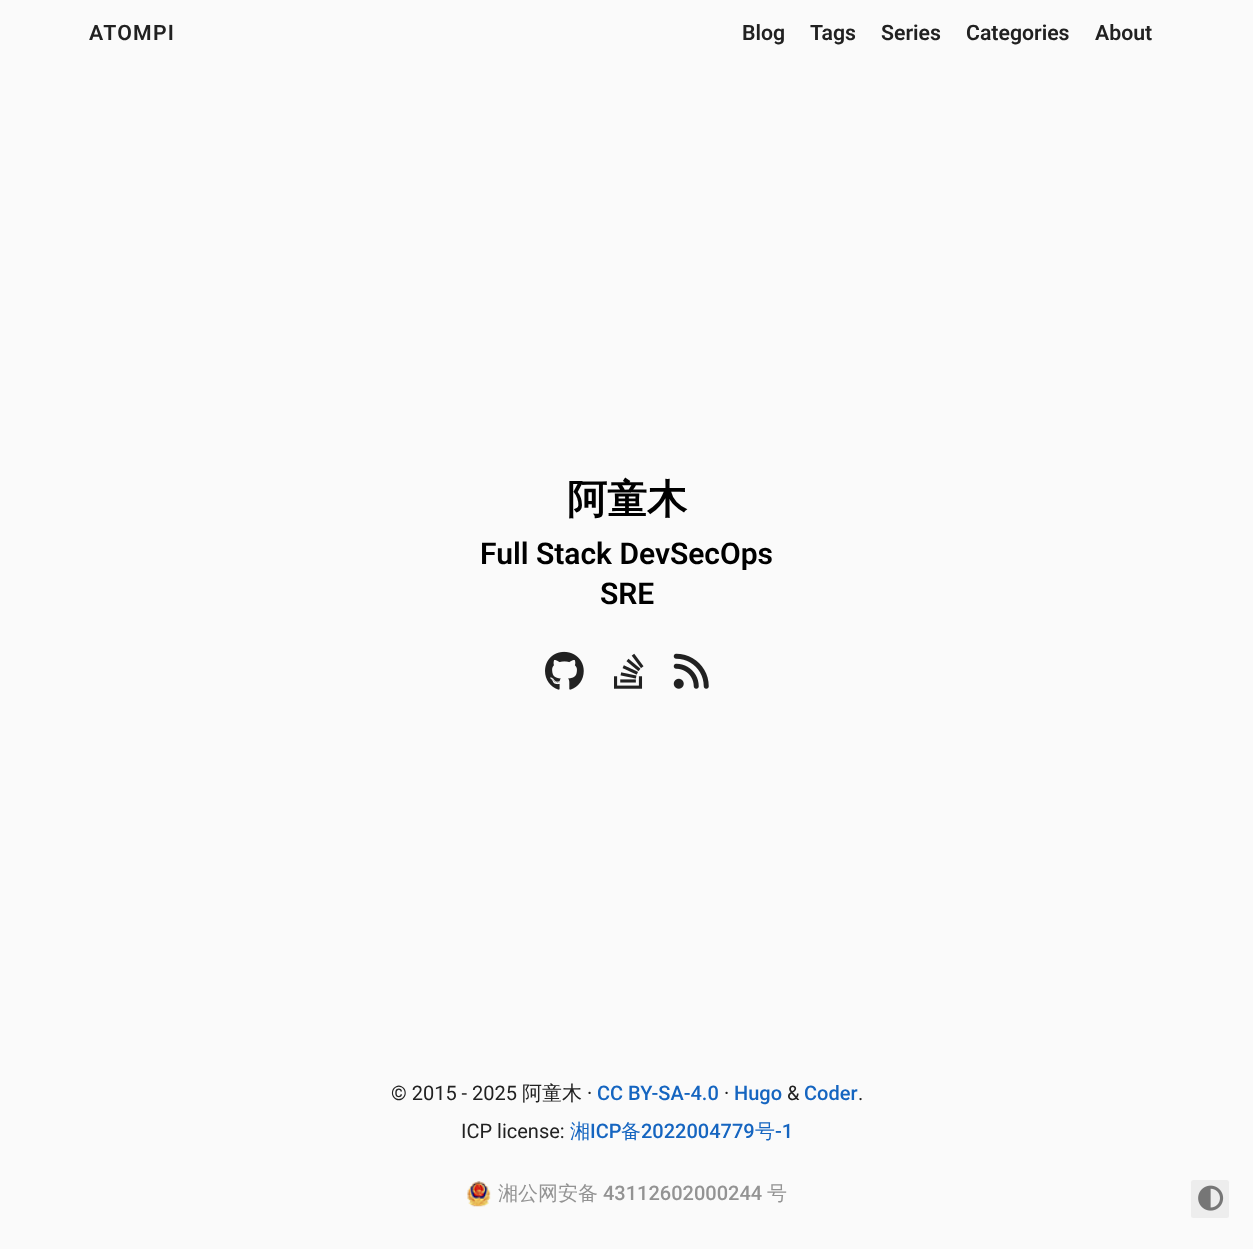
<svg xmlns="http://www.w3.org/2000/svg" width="1253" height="1249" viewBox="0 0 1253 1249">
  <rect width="100%" height="100%" fill="rgb(250,250,250)"/>
  <text x="89" y="40" font-family="Roboto" font-size="21.25" font-weight="600" letter-spacing="1.25" fill="rgb(33,33,33)">ATOMPI</text>
  <g font-family="Roboto" font-size="21.25" font-weight="600" fill="rgb(33,33,33)">
    <text x="742" y="40">Blog</text>
    <text x="810" y="40">Tags</text>
    <text x="881" y="40">Series</text>
    <text x="966" y="40">Categories</text>
    <text x="1095" y="40">About</text>
  </g>
  <text x="567" y="513" font-family="WenQuanYi Zen Hei" font-size="40" font-weight="bold" fill="rgb(0,0,0)">阿童木</text>
  <g font-family="Roboto" font-size="30" font-weight="600" fill="rgb(0,0,0)">
    <text x="480" y="564">Full Stack DevSecOps</text>
    <text x="600" y="604">SRE</text>
  </g>
  <image x="545" y="651" width="39" height="39" href="pic1.png"/>
  <image x="614" y="653" width="30" height="36" href="pic2.png"/>
  <image x="673" y="653" width="36" height="36" href="pic3.png"/>
  <text x="391" y="1100" font-family="Roboto" font-size="20" fill="rgb(33,33,33)">© 2015 - 2025</text>
  <text x="522" y="1100" font-family="WenQuanYi Zen Hei" font-size="20" font-weight="500" fill="rgb(33,33,33)">阿童木</text>
  <text x="587" y="1100" font-family="Roboto" font-size="20" fill="rgb(33,33,33)">·</text>
  <text x="597" y="1100" font-family="Roboto" font-size="20" font-weight="500" fill="rgb(21,101,192)">CC BY-SA-4.0</text>
  <text x="724" y="1100" font-family="Roboto" font-size="20" fill="rgb(33,33,33)">·</text>
  <text x="734" y="1100" font-family="Roboto" font-size="20" font-weight="500" fill="rgb(21,101,192)">Hugo</text>
  <text x="787" y="1100" font-family="Roboto" font-size="20" fill="rgb(33,33,33)">&amp;</text>
  <text x="804" y="1100" font-family="Roboto" font-size="20" font-weight="500" fill="rgb(21,101,192)">Coder</text>
  <g font-family="Roboto" font-size="20" fill="rgb(33,33,33)">
    <text x="858" y="1100">.</text>
    <text x="461" y="1138">ICP license:</text>
  </g>
  <text x="570" y="1138" font-family="WenQuanYi Zen Hei" font-size="20" font-weight="500" fill="rgb(21,101,192)">湘</text>
  <text x="590" y="1138" font-family="Roboto" font-size="20" font-weight="500" fill="rgb(21,101,192)">ICP</text>
  <text x="621" y="1138" font-family="WenQuanYi Zen Hei" font-size="20" font-weight="500" fill="rgb(21,101,192)">备</text>
  <text x="641" y="1138" font-family="Roboto" font-size="20" font-weight="500" fill="rgb(21,101,192)">2022004779</text>
  <text x="755" y="1138" font-family="WenQuanYi Zen Hei" font-size="20" font-weight="500" fill="rgb(21,101,192)">号</text>
  <text x="775" y="1138" font-family="Roboto" font-size="20" font-weight="500" fill="rgb(21,101,192)">-1</text>
  <image x="467" y="1181" width="24" height="26" href="pic4.png"/>
  <text x="498" y="1200" font-family="WenQuanYi Zen Hei" font-size="20" font-weight="500" fill="rgb(147,147,147)">湘公网安备</text>
  <text x="603" y="1200" font-family="Roboto" font-size="20" font-weight="500" fill="rgb(147,147,147)">43112602000244</text>
  <text x="767" y="1200" font-family="WenQuanYi Zen Hei" font-size="20" font-weight="500" fill="rgb(147,147,147)">号</text>
  <rect x="1191" y="1180" width="38" height="38" rx="2.5" fill="rgb(237,237,237)"/>
  <image x="1198" y="1185" width="26" height="26" href="pic5.png"/>
</svg>
